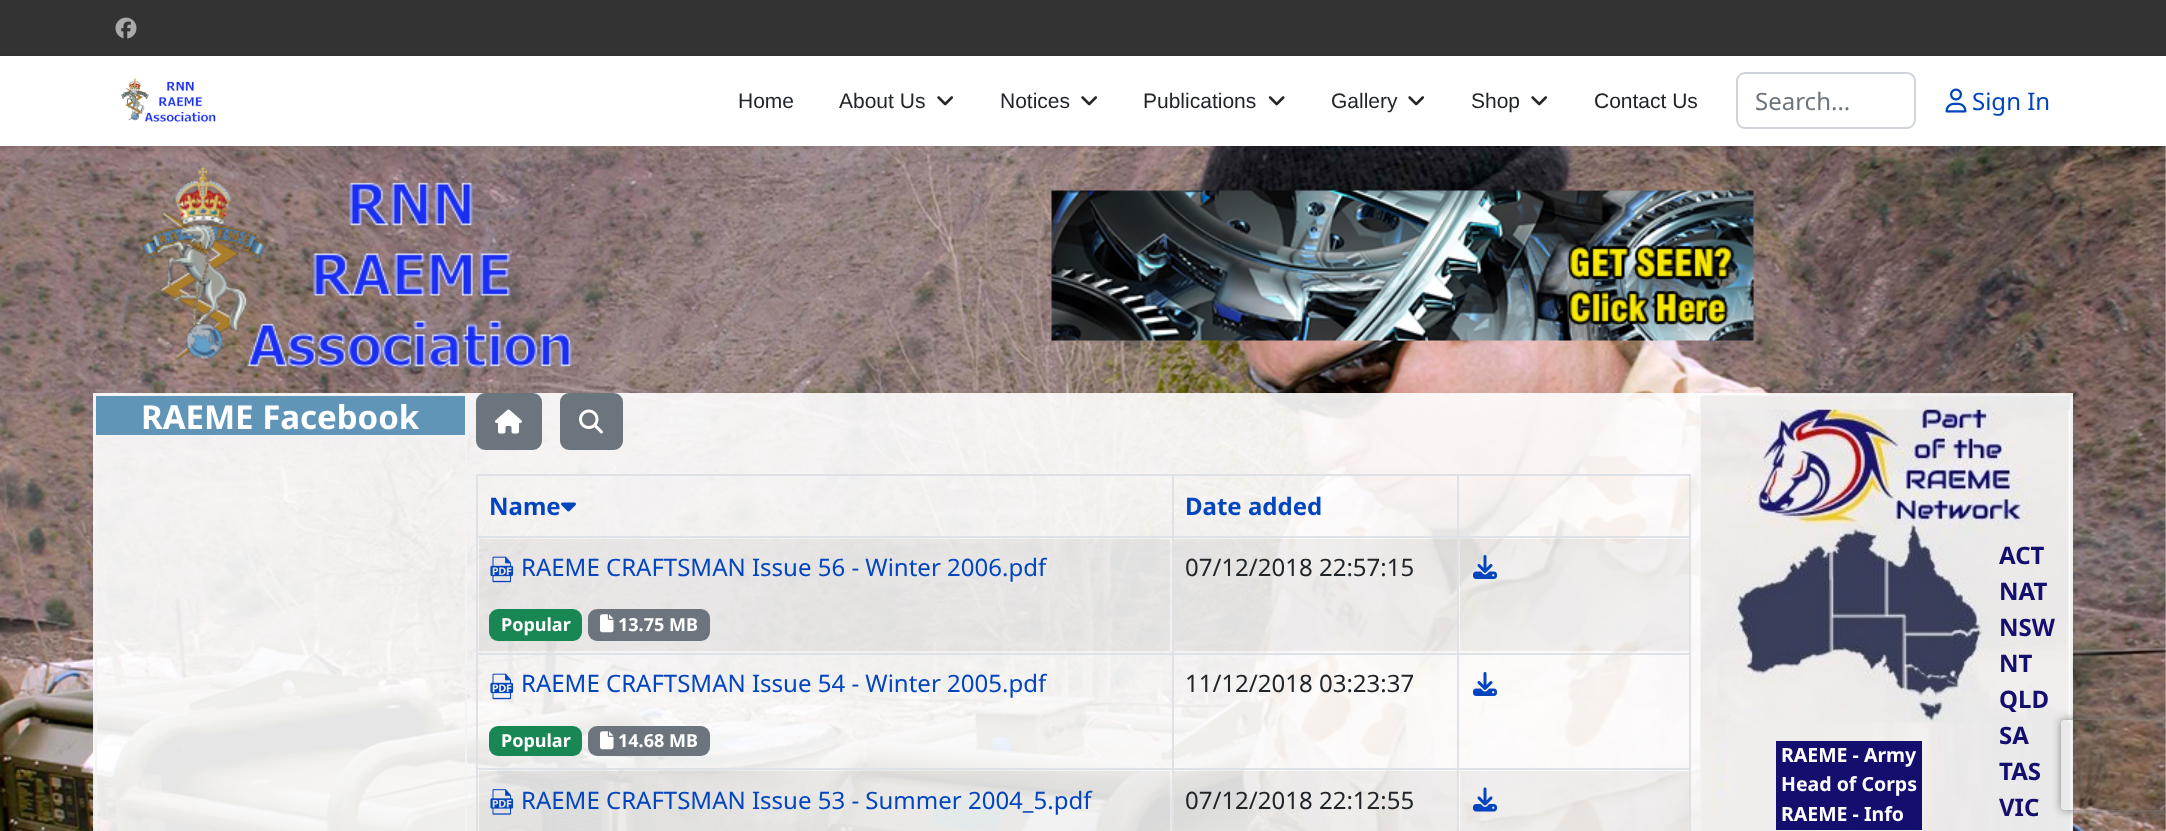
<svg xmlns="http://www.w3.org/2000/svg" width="2166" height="831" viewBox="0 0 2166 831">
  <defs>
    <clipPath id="clip1"><path d="M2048 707H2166V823H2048ZM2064 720H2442C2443.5 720 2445 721.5 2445 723V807C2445 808.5 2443.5 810 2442 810H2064C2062.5 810 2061 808.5 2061 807V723C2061 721.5 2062.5 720 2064 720Z" clip-rule="evenodd"/></clipPath>
  </defs>
  <rect width="100%" height="100%" fill="rgb(255,255,255)"/>
  <rect x="0" y="0" width="2166" height="56" fill="rgb(51,51,51)"/>
  <image x="115" y="17" width="22" height="22" href="pic1.png"/>
  <image x="0" y="146" width="2166" height="685" href="pic6.png"/>
  <rect x="0" y="56" width="2166" height="90" fill="rgba(0,0,0,0.1)" filter="blur(3px)"/>
  <rect x="0" y="56" width="2166" height="90" fill="rgb(255,255,255)"/>
  <image x="121" y="78" width="95" height="44" href="pic2.png"/>
  <g font-family="Liberation Sans" font-size="21" fill="rgb(33,37,41)">
    <text x="738" y="108">Home</text>
    <text x="839" y="108">About Us</text>
  </g>
  <image x="937" y="96" width="16" height="10" href="pic3.png"/>
  <text x="1000" y="108" font-family="Liberation Sans" font-size="21" fill="rgb(33,37,41)">Notices</text>
  <image x="1081" y="96" width="16" height="10" href="pic3.png"/>
  <text x="1143" y="108" font-family="Liberation Sans" font-size="21" fill="rgb(33,37,41)">Publications</text>
  <image x="1268" y="96" width="17" height="10" href="pic4.png"/>
  <text x="1331" y="108" font-family="Liberation Sans" font-size="21" fill="rgb(33,37,41)">Gallery</text>
  <image x="1408" y="96" width="16" height="10" href="pic3.png"/>
  <text x="1471" y="108" font-family="Liberation Sans" font-size="21" fill="rgb(33,37,41)">Shop</text>
  <image x="1531" y="96" width="16" height="10" href="pic3.png"/>
  <text x="1594" y="108" font-family="Liberation Sans" font-size="21" fill="rgb(33,37,41)">Contact Us</text>
  <rect x="1737" y="73" width="178" height="55" rx="8" fill="none" stroke="rgb(206,212,218)" stroke-width="2"/>
  <text x="1755" y="110" font-family="Noto Sans" font-size="24" fill="rgb(108,117,125)">Search...</text>
  <image x="1945" y="88" width="22" height="25" href="pic5.png"/>
  <text x="1972" y="110" font-family="Noto Sans" font-size="24" fill="rgb(3,69,191)">Sign In</text>
  <image x="141" y="166" width="431" height="202" href="pic7.png"/>
  <image x="1051" y="190" width="703" height="151" href="pic8.png"/>
  <rect x="93" y="393" width="375" height="438" fill="rgba(255,255,255,0.9)"/>
  <rect x="96" y="396" width="370" height="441" rx="4" fill="none" stroke="rgb(243,243,243)" stroke-width="2"/>
  <rect x="96" y="396" width="369" height="39" fill="rgb(97,149,184)"/>
  <rect x="96" y="435" width="369" height="2" fill="rgb(243,243,243)"/>
  <text x="141" y="429" font-family="Noto Sans" font-size="33" font-weight="bold" fill="rgb(255,255,255)">RAEME Facebook</text>
  <rect x="468" y="393" width="1230" height="438" fill="rgba(255,255,255,0.9)"/>
  <rect x="477" y="394" width="64" height="55" rx="8" fill="rgb(108,117,125)" stroke="rgb(108,117,125)" stroke-width="2"/>
  <image x="495" y="409" width="27" height="25" href="pic9.png"/>
  <rect x="561" y="394" width="61" height="55" rx="8" fill="rgb(108,117,125)" stroke="rgb(108,117,125)" stroke-width="2"/>
  <image x="579" y="409" width="24" height="25" href="pic10.png"/>
  <rect x="476" y="474" width="1215" height="2" fill="rgb(222,226,230)"/>
  <rect x="476" y="536" width="1215" height="2" fill="rgb(222,226,230)"/>
  <rect x="1689" y="536" width="2" height="295" fill="rgb(222,226,230)"/>
  <rect x="1689" y="474" width="2" height="63" fill="rgb(222,226,230)"/>
  <rect x="476" y="536" width="2" height="295" fill="rgb(222,226,230)"/>
  <rect x="476" y="474" width="2" height="63" fill="rgb(222,226,230)"/>
  <text x="489" y="515" font-family="Noto Sans" font-size="24" font-weight="bold" fill="rgb(3,69,191)">Name</text>
  <image x="561" y="502" width="15" height="10" href="pic11.png"/>
  <text x="1185" y="515" font-family="Noto Sans" font-size="24" font-weight="bold" fill="rgb(3,69,191)">Date added</text>
  <rect x="479" y="539" width="691" height="112" fill="rgba(0,0,0,0.05)"/>
  <image x="490" y="556" width="24" height="27" href="pic12.png"/>
  <text x="521" y="576" font-family="Noto Sans" font-size="24" fill="rgb(3,69,191)">RAEME CRAFTSMAN Issue 56 - Winter 2006.pdf</text>
  <rect x="489" y="609" width="93" height="32" rx="9" fill="rgb(25,135,84)"/>
  <text x="501" y="631" font-family="Noto Sans" font-size="18" font-weight="bold" fill="rgb(255,255,255)">Popular</text>
  <rect x="588" y="609" width="122" height="32" rx="9" fill="rgb(108,117,125)"/>
  <image x="600" y="614" width="14" height="19" href="pic13.png"/>
  <text x="618" y="631" font-family="Noto Sans" font-size="18" font-weight="bold" fill="rgb(255,255,255)">13.75 MB</text>
  <rect x="1174" y="539" width="283" height="112" fill="rgba(0,0,0,0.05)"/>
  <text x="1185" y="576" font-family="Noto Sans" font-size="24" fill="rgb(33,37,41)">07/12/2018 22:57:15</text>
  <rect x="1460" y="539" width="229" height="112" fill="rgba(0,0,0,0.05)"/>
  <image x="1473" y="555" width="24" height="24" href="pic14.png"/>
  <rect x="476" y="653" width="1215" height="2" fill="rgb(222,226,230)"/>
  <image x="490" y="673" width="24" height="27" href="pic15.png"/>
  <text x="521" y="692" font-family="Noto Sans" font-size="24" fill="rgb(3,69,191)">RAEME CRAFTSMAN Issue 54 - Winter 2005.pdf</text>
  <rect x="489" y="726" width="93" height="30" rx="9" fill="rgb(25,135,84)"/>
  <text x="501" y="747" font-family="Noto Sans" font-size="18" font-weight="bold" fill="rgb(255,255,255)">Popular</text>
  <rect x="588" y="726" width="122" height="30" rx="9" fill="rgb(108,117,125)"/>
  <image x="600" y="731" width="14" height="19" href="pic13.png"/>
  <text x="618" y="747" font-family="Noto Sans" font-size="18" font-weight="bold" fill="rgb(255,255,255)">14.68 MB</text>
  <text x="1185" y="692" font-family="Noto Sans" font-size="24" fill="rgb(33,37,41)">11/12/2018 03:23:37</text>
  <image x="1473" y="672" width="24" height="24" href="pic16.png"/>
  <rect x="476" y="768" width="1215" height="2" fill="rgb(222,226,230)"/>
  <rect x="479" y="771" width="691" height="60" fill="rgba(0,0,0,0.05)"/>
  <image x="490" y="789" width="24" height="26" href="pic17.png"/>
  <text x="521" y="809" font-family="Noto Sans" font-size="24" fill="rgb(3,69,191)">RAEME CRAFTSMAN Issue 53 - Summer 2004_5.pdf</text>
  <rect x="1174" y="771" width="283" height="60" fill="rgba(0,0,0,0.05)"/>
  <rect x="1172" y="474" width="2" height="357" fill="rgb(222,226,230)"/>
  <text x="1185" y="809" font-family="Noto Sans" font-size="24" fill="rgb(33,37,41)">07/12/2018 22:12:55</text>
  <rect x="1460" y="771" width="229" height="60" fill="rgba(0,0,0,0.05)"/>
  <rect x="1457" y="474" width="2" height="357" fill="rgb(222,226,230)"/>
  <image x="1473" y="787" width="24" height="25" href="pic18.png"/>
  <rect x="1698" y="393" width="375" height="438" fill="rgba(255,255,255,0.9)"/>
  <rect x="1701" y="396" width="370" height="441" rx="4" fill="none" stroke="rgb(243,243,243)" stroke-width="2"/>
  <image x="1701" y="396" width="369" height="435" href="pic19.png"/>
  <rect x="1776" y="741" width="146" height="89" fill="rgb(20,14,110)"/>
  <g font-family="Noto Sans" font-size="19.5" font-weight="bold" fill="rgb(255,255,255)">
    <text>
      <tspan x="1781" y="762">RAEME - Army</tspan>
      <tspan x="1781" y="791">Head of Corps</tspan>
      <tspan x="1781" y="821">RAEME - Info</tspan>
    </text>
  </g>
  <g font-family="Noto Sans" font-size="24" font-weight="bold" fill="rgb(20,14,110)">
    <text>
      <tspan x="1999" y="564">ACT</tspan>
      <tspan x="1999" y="600">NAT</tspan>
      <tspan x="1999" y="636">NSW</tspan>
      <tspan x="1999" y="672">NT</tspan>
      <tspan x="1999" y="708">QLD</tspan>
      <tspan x="1999" y="744">SA</tspan>
      <tspan x="1999" y="780">TAS</tspan>
      <tspan x="1999" y="816">VIC</tspan>
    </text>
  </g>
  <g clip-path="url(#clip1)">
    <rect x="2061" y="720" width="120" height="90" rx="3" fill="rgb(128,128,128)" filter="blur(4px)"/>
  </g>
</svg>
